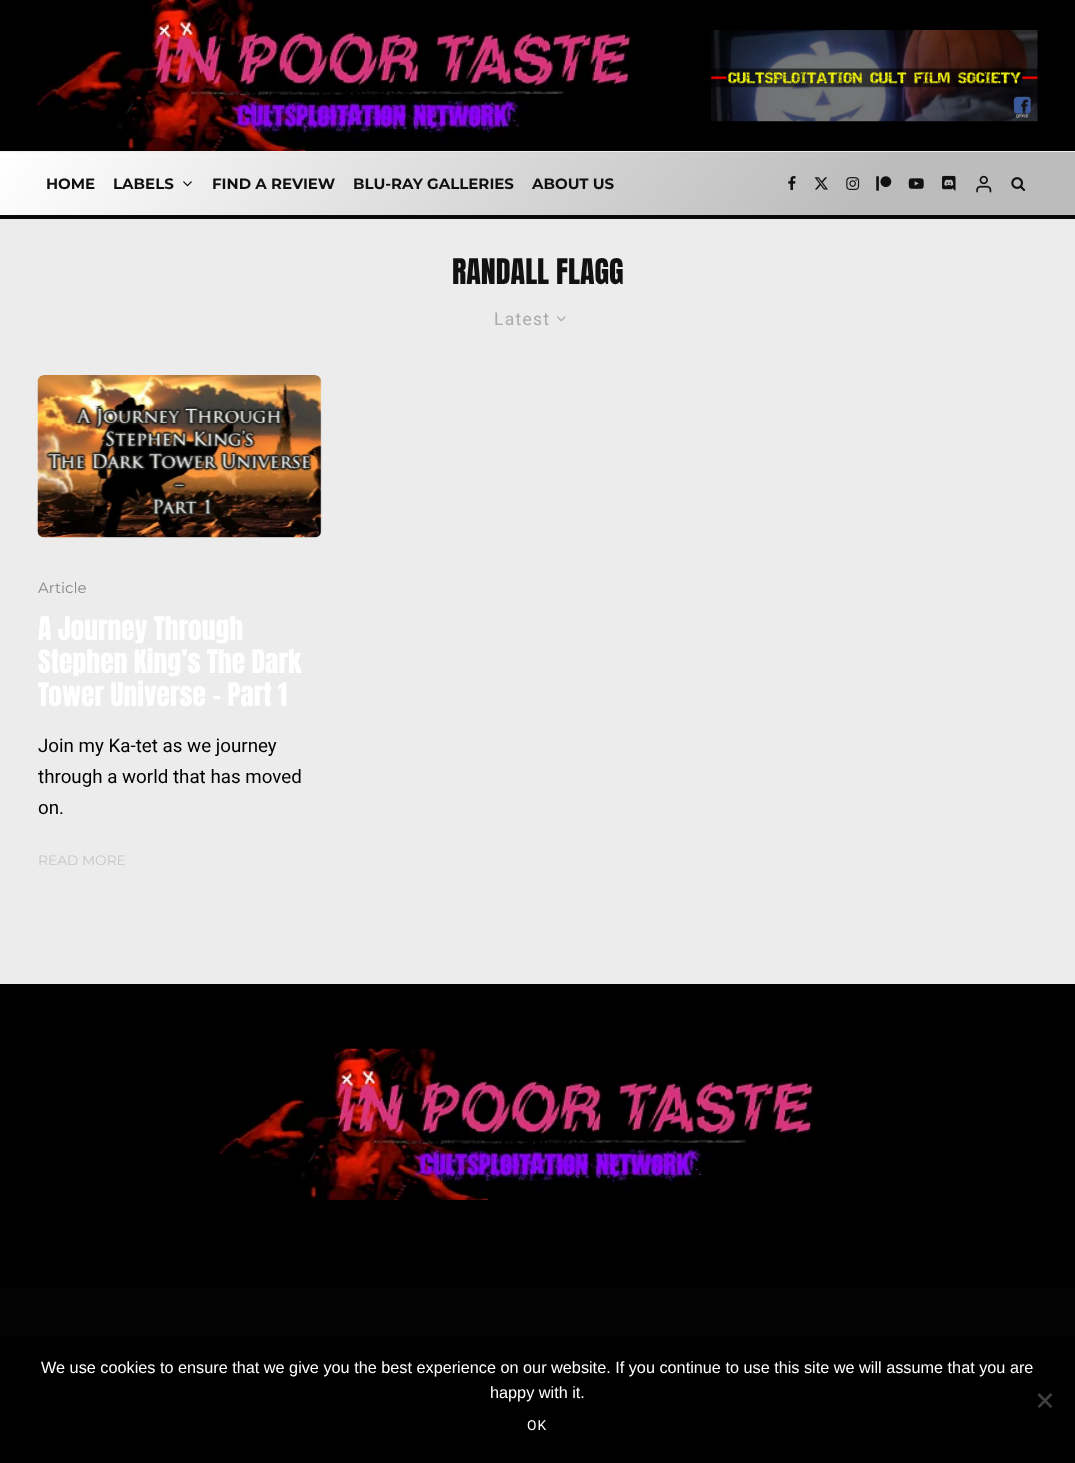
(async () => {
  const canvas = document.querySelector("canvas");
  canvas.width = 1075;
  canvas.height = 1463;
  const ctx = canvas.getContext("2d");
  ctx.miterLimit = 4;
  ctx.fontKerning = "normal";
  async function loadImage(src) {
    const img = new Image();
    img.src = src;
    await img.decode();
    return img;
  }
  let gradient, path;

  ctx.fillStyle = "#030303";
  ctx.fillRect(0, 0, 1075, 1463);
  ctx.fillStyle = "#000000";
  ctx.fillRect(0, 0, 1075, 151);
  ctx.drawImage(await loadImage("img/1.png"), 37, 0, 601, 151);
  ctx.drawImage(await loadImage("img/2.png"), 711, 30, 327, 92);
  gradient = ctx.createLinearGradient(207, -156, 868, 399);
  gradient.addColorStop(0, "#ffffff");
  gradient.addColorStop(0.8, "#bcbcbc");
  ctx.fillStyle = gradient;
  ctx.fillRect(0, 152, 1075, 1);
  gradient = ctx.createLinearGradient(207, -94, 868, 461);
  gradient.addColorStop(0, "#ffffff");
  gradient.addColorStop(0.8, "#bcbcbc");
  ctx.fillStyle = gradient;
  ctx.fillRect(0, 153, 1075, 62);
  ctx.fillStyle = "#eeeeee";
  ctx.fillRect(0, 151, 1075, 1);
  ctx.fillStyle = "#0a0a0a";
  ctx.fillRect(0, 215, 1075, 4);
  ctx.drawImage(await loadImage("img/3.png"), 183, 181, 9, 6);
  ctx.drawImage(await loadImage("img/4.png"), 788, 176, 8, 14);
  ctx.drawImage(await loadImage("img/5.png"), 814, 177, 14, 13);
  ctx.drawImage(await loadImage("img/6.png"), 846, 177, 14, 13);
  ctx.drawImage(await loadImage("img/7.png"), 876, 176, 16, 15);
  ctx.drawImage(await loadImage("img/8.png"), 908, 178, 16, 11);
  ctx.drawImage(await loadImage("img/9.png"), 942, 175, 14, 16);
  ctx.drawImage(await loadImage("img/10.png"), 976, 175, 16, 18);
  ctx.drawImage(await loadImage("img/11.png"), 1011, 177, 15, 14);
  ctx.fillStyle = "#ececec";
  ctx.fillRect(0, 219, 1075, 765);
  ctx.drawImage(await loadImage("img/12.png"), 557, 316, 9, 6);
  ctx.fillStyle = "#dbdbdb";
  ctx.beginPath();
  ctx.roundRect(38, 375, 283, 163, 6);
  ctx.fill();
  ctx.drawImage(await loadImage("img/13.png"), 37, 375, 285, 163);
  ctx.fillStyle = "#000000";
  ctx.fillRect(0, 984, 1075, 304);
  ctx.drawImage(await loadImage("img/14.png"), 220, 1048, 600, 152);
  ctx.fillRect(0, 1336, 1075, 127);
  ctx.fillStyle = "#404040";
  path = new Path2D("M1050.5 1393L1052.5 1395L1039.5 1408L1037.5 1406.5Z");
  ctx.fill(path);
  path = new Path2D("M1037.5 1395L1039.5 1393L1052.5 1406.5L1050.5 1408Z");
  ctx.fill(path);
  ctx.font = "bold 15px Montserrat";
  ctx.fillStyle = "#111111";
  for (const [text, x, y] of [
    ["HOME", 46, 189],
    ["LABELS", 113, 189],
    ["FIND A REVIEW", 212, 189],
    ["BLU-RAY GALLERIES", 353, 189],
    ["ABOUT US", 532, 189],
  ]) {
    ctx.fillText(text, x, y);
  }
  ctx.font = "30px Anton";
  ctx.fillText("RANDALL FLAGG", 452, 284);
  ctx.letterSpacing = "1.25px";
  ctx.font = "17.5px Roboto";
  ctx.fillStyle = "#aaaaaa";
  ctx.fillText("Latest", 494, 325);
  ctx.letterSpacing = "0px";
  ctx.font = "15px Montserrat";
  ctx.fillStyle = "#888888";
  ctx.fillText("Article", 38, 593);
  ctx.font = "27.5px Anton";
  ctx.fillStyle = "#ffffff";
  for (const [text, x, y] of [
    ["A Journey Through", 38, 640],
    ["Stephen King’s The Dark", 38, 673],
    ["Tower Universe – Part 1", 38, 706],
  ]) {
    ctx.fillText(text, x, y);
  }
  ctx.font = "18.75px Roboto";
  ctx.fillStyle = "#000000";
  for (const [text, x, y] of [
    ["Join my Ka-tet as we journey", 38, 752],
    ["through a world that has moved", 38, 783],
    ["on.", 38, 814],
  ]) {
    ctx.fillText(text, x, y);
  }
  ctx.font = "13.75px Montserrat";
  ctx.fillStyle = "#c6c6c6";
  ctx.fillText("READ MORE", 38, 865);
  ctx.font = "16.25px Liberation Sans";
  ctx.fillStyle = "#ffffff";
  ctx.fillText("We use cookies to ensure that we give you the best experience on our website. If you continue to use this site we will assume that you are", 41, 1373);
  ctx.fillText("happy with it.", 490, 1398);
  ctx.letterSpacing = "1px";
  ctx.font = "13.75px Roboto";
  ctx.fillText("OK", 527, 1430);
})();
